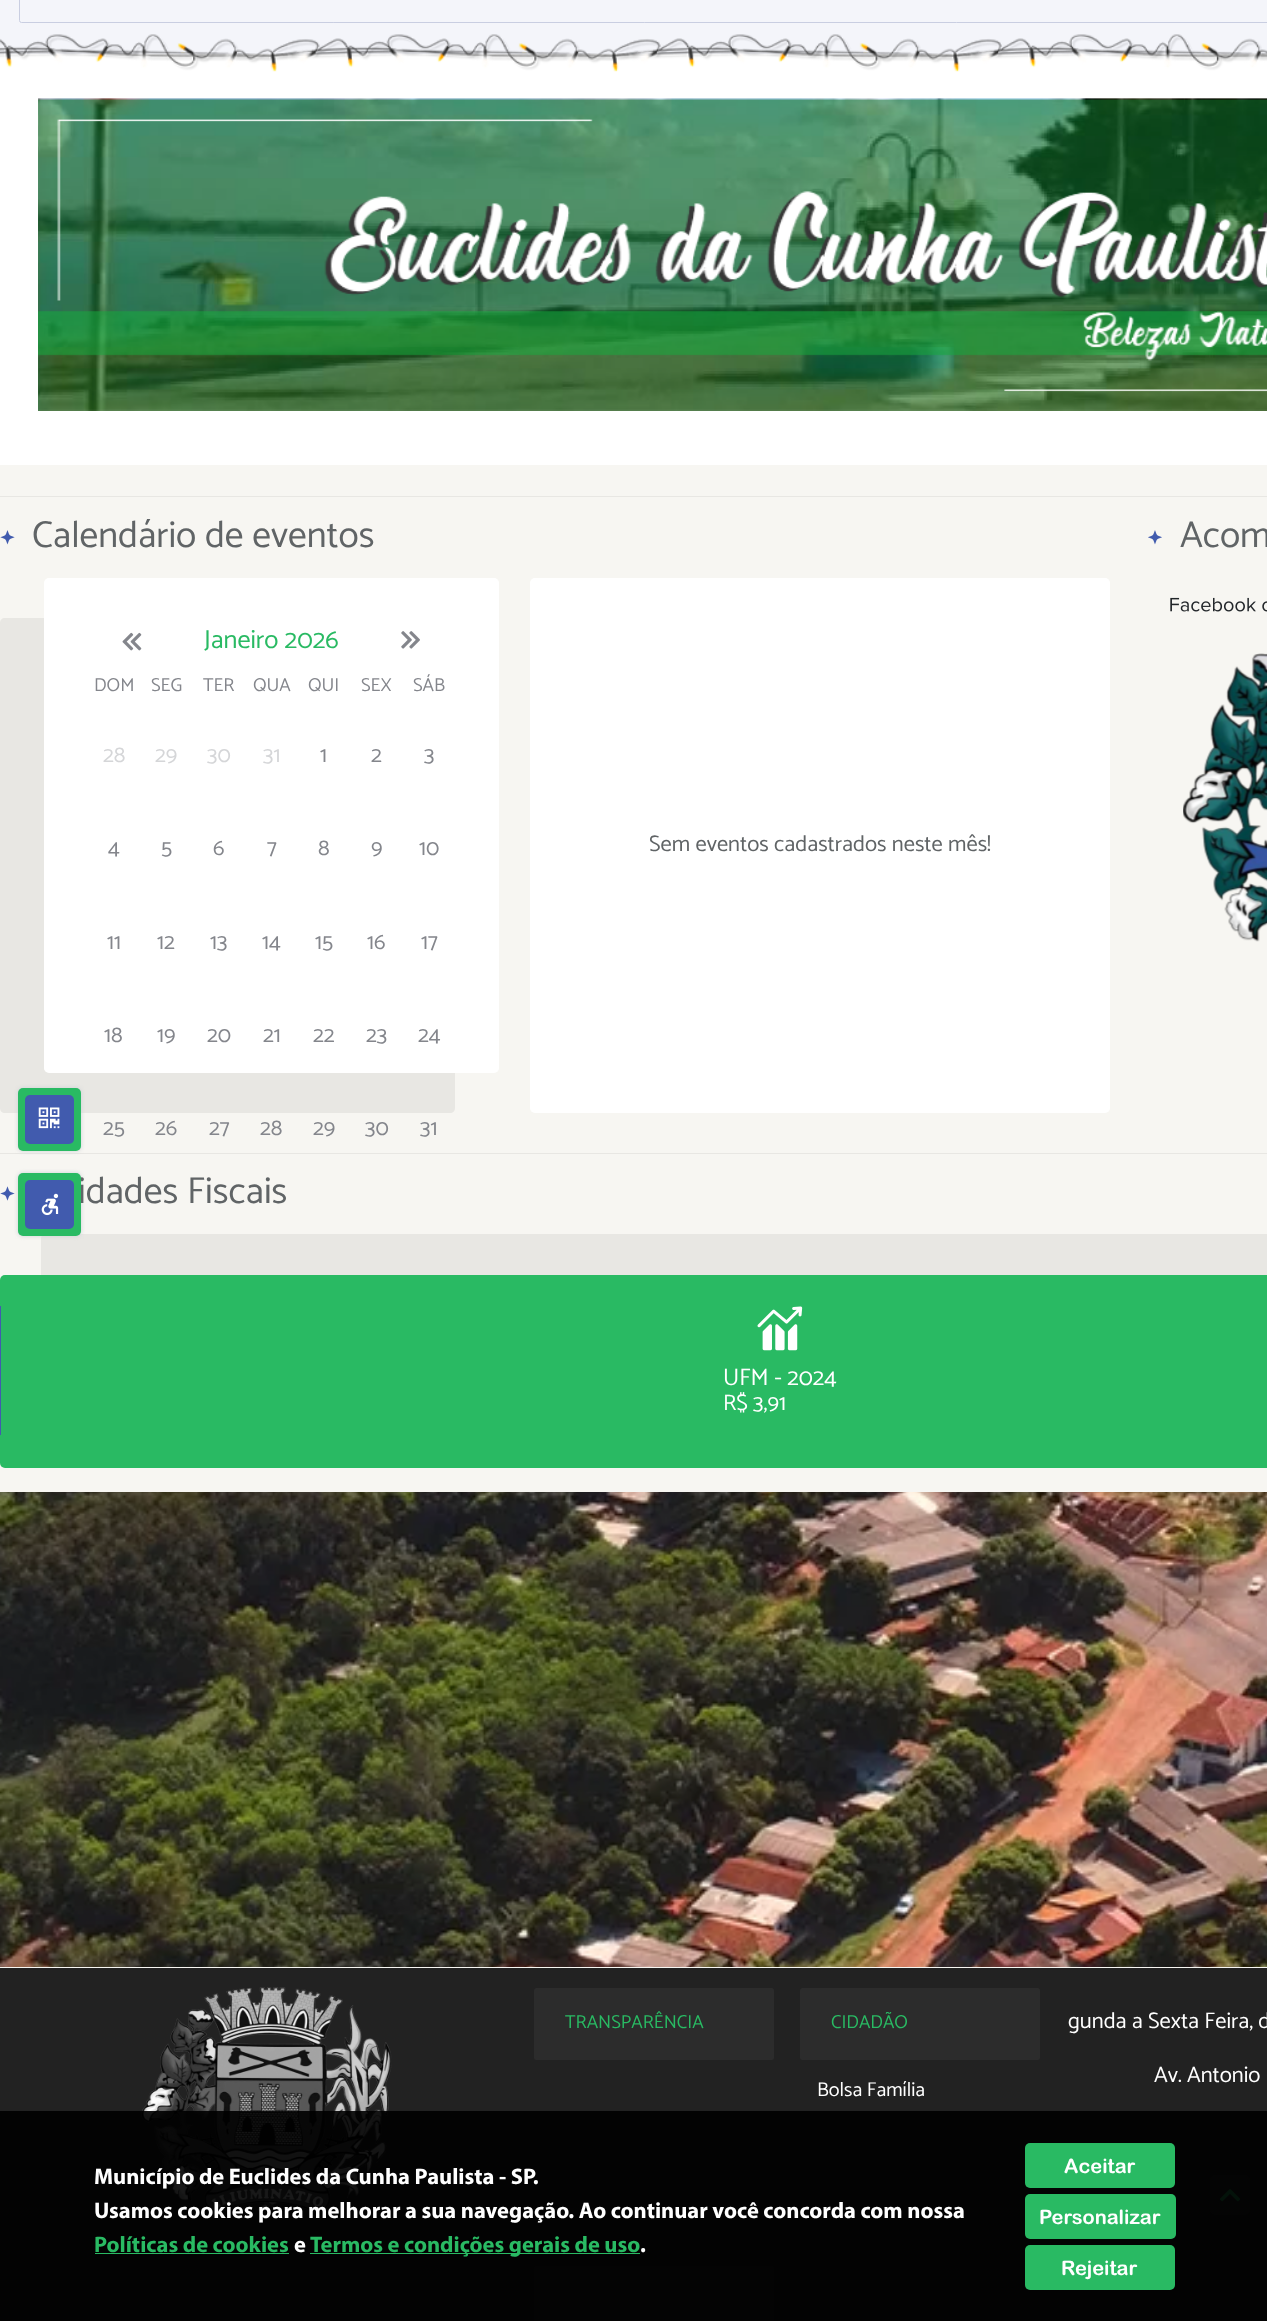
(async () => {
  const canvas = document.querySelector("canvas");
  canvas.width = 1267;
  canvas.height = 2321;
  const ctx = canvas.getContext("2d");
  ctx.miterLimit = 4;
  ctx.fontKerning = "normal";
  async function loadImage(src) {
    const img = new Image();
    img.src = src;
    await img.decode();
    return img;
  }
  let path;

  ctx.fillStyle = "#f7f6f2";
  ctx.fillRect(0, 0, 1267, 2321);
  ctx.fillStyle = "#f4f5fa";
  ctx.fillRect(0, 0, 1267, 54);
  ctx.beginPath();
  ctx.roundRect(19.5, -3.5, 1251, 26, 2);
  ctx.strokeStyle = "#c9cee1";
  ctx.stroke();
  ctx.fillStyle = "#ffffff";
  ctx.fillRect(0, 54, 1267, 411);
  ctx.drawImage(await loadImage("img/1.png"), 0, 34, 1267, 38);
  ctx.drawImage(await loadImage("img/2.png"), 38, 98, 1229, 313);
  ctx.fillStyle = "#e8e7e3";
  ctx.fillRect(0, 496, 1267, 1);
  ctx.drawImage(await loadImage("img/3.png"), 0, 530, 15, 15);
  path = new Path2D("M5 618C2 618 0 620 0 623V1108C0 1111 2 1113 5 1113H450C453 1113 455 1111 455 1108V1072H49C46 1072 44 1070 44 1068V618Z");
  ctx.fill(path);
  ctx.fillStyle = "#ffffff";
  ctx.beginPath();
  ctx.roundRect(44, 578, 455, 495, 5);
  ctx.fill();
  ctx.drawImage(await loadImage("img/4.png"), 122, 632, 20, 19);
  ctx.drawImage(await loadImage("img/5.png"), 401, 631, 19, 18);
  ctx.beginPath();
  ctx.roundRect(530, 578, 580, 535, 5);
  ctx.fill();
  ctx.drawImage(await loadImage("img/6.png"), 1148, 530, 14, 15);
  ctx.drawImage(await loadImage("img/7.png"), 1170, 597, 97, 15);
  ctx.drawImage(await loadImage("img/8.png"), 1183, 653, 84, 289);
  ctx.fillStyle = "#e8e7e3";
  ctx.fillRect(0, 1153, 1267, 1);
  ctx.drawImage(await loadImage("img/9.png"), 0, 1186, 15, 15);
  path = new Path2D("M46 1234C43 1234 41 1236 41 1239V1275H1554C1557 1275 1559 1277 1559 1280V1426H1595C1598 1426 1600 1424 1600 1421V1239C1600 1236 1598 1234 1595 1234Z");
  ctx.fill(path);
  ctx.fillStyle = "#29ba63";
  ctx.beginPath();
  ctx.roundRect(0, 1275, 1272, 193, 5);
  ctx.fill();
  ctx.fillStyle = "#415bae";
  ctx.fillRect(0, 1306, 1, 129);
  ctx.drawImage(await loadImage("img/10.png"), 757, 1306, 46, 45);
  ctx.drawImage(await loadImage("img/11.png"), 0, 1492, 1267, 475);
  ctx.fillStyle = "#222222";
  ctx.fillRect(0, 1968, 1267, 353);
  ctx.drawImage(await loadImage("img/12.png"), 141, 1987, 251, 225);
  ctx.fillStyle = "#2c2c2c";
  ctx.beginPath();
  ctx.roundRect(534, 1988, 240, 72, 2.5);
  ctx.fill();
  ctx.beginPath();
  ctx.roundRect(800, 1988, 240, 72, 2.5);
  ctx.fill();
  ctx.beginPath();
  ctx.roundRect(534, 2266, 240, 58, 2.5);
  ctx.fill();
  ctx.beginPath();
  ctx.roundRect(1210, 2175, 40, 40, 5);
  ctx.fill();
  ctx.drawImage(await loadImage("img/13.png"), 1220, 2189, 20, 13);
  for (const [x, y, w, h, color] of [
    [0, 2111, 1267, 210, "rgba(0, 0, 0, 0.9)"],
    [95, 2253, 194, 1, "#29ba63"],
    [310, 2253, 330, 1, "#29ba63"],
  ]) {
    ctx.fillStyle = color;
    ctx.fillRect(x, y, w, h);
  }
  ctx.beginPath();
  ctx.roundRect(1025, 2143, 150, 45, 5);
  ctx.fill();
  ctx.beginPath();
  ctx.roundRect(1025, 2194, 151, 45, 5);
  ctx.fill();
  ctx.beginPath();
  ctx.roundRect(1025, 2245, 150, 45, 5);
  ctx.fill();
  ctx.fillStyle = "#cbd0d6";
  ctx.filter = "blur(2px)";
  ctx.beginPath();
  ctx.roundRect(18, 1088, 63, 63, 5);
  ctx.fill();
  ctx.filter = "none";
  ctx.fillStyle = "#29ba63";
  ctx.beginPath();
  ctx.roundRect(18, 1088, 63, 63, 5);
  ctx.fill();
  ctx.fillStyle = "#415bae";
  ctx.beginPath();
  ctx.roundRect(25, 1095, 49, 49, 5);
  ctx.fill();
  ctx.drawImage(await loadImage("img/14.png"), 38, 1107, 22, 22);
  ctx.fillStyle = "#cbd0d6";
  ctx.filter = "blur(2px)";
  ctx.beginPath();
  ctx.roundRect(18, 1173, 63, 63, 5);
  ctx.fill();
  ctx.filter = "none";
  ctx.font = "37.5px Catamaran";
  ctx.fillStyle = "#606466";
  ctx.fillText("Calendário de eventos", 32, 547);
  ctx.font = "26.25px Catamaran";
  ctx.fillStyle = "#29ba63";
  ctx.fillText("Janeiro 2026", 204, 648);
  ctx.font = "18.75px Catamaran";
  ctx.fillStyle = "#84868c";
  for (const [text, x, y] of [
    ["DOM", 94, 691],
    ["SEG", 151, 691],
    ["TER", 203, 691],
    ["QUA", 253, 691],
    ["QUI", 308, 691],
    ["SEX", 361, 691],
    ["SÁB", 413, 691],
  ]) {
    ctx.fillText(text, x, y);
  }
  ctx.font = "22.5px Catamaran";
  ctx.fillStyle = "#d5d6d8";
  for (const [text, x, y] of [
    ["28", 103, 762],
    ["29", 155, 762],
    ["30", 207, 762],
    ["31", 263, 762],
  ]) {
    ctx.fillText(text, x, y);
  }
  ctx.fillStyle = "#84868c";
  for (const [text, x, y] of [
    ["1", 320, 762],
    ["2", 371, 762],
    ["3", 424, 762],
    ["4", 108, 855],
    ["5", 161, 855],
    ["6", 213, 855],
    ["7", 267, 855],
    ["8", 318, 855],
    ["9", 371, 855],
    ["10", 419, 855],
    ["11", 107, 949],
    ["12", 157, 949],
    ["13", 210, 949],
    ["14", 262, 949],
    ["15", 315, 949],
    ["16", 367, 949],
    ["17", 421, 949],
    ["18", 104, 1042],
    ["19", 157, 1042],
    ["20", 207, 1042],
    ["21", 263, 1042],
    ["22", 313, 1042],
    ["23", 366, 1042],
    ["24", 418, 1042],
    ["25", 103, 1135],
    ["26", 155, 1135],
    ["27", 209, 1135],
    ["28", 260, 1135],
    ["29", 313, 1135],
    ["30", 365, 1135],
    ["31", 420, 1135],
  ]) {
    ctx.fillText(text, x, y);
  }
  ctx.fillStyle = "#606466";
  ctx.fillText("Sem eventos cadastrados neste mês!", 649, 851);
  ctx.font = "37.5px Catamaran";
  ctx.fillText("Acom", 1180, 547);
  ctx.fillText("idades Fiscais", 78, 1203);
  ctx.font = "23.75px Catamaran";
  ctx.fillStyle = "#ffffff";
  ctx.fillText("UFM - 2024", 723, 1385);
  ctx.font = "22.5px Catamaran";
  ctx.fillText("R$ 3,91", 723, 1410);
  ctx.font = "18.75px Catamaran";
  ctx.fillStyle = "#29ba63";
  ctx.fillText("TRANSPARÊNCIA", 565, 2028);
  ctx.fillText("CIDADÃO", 831, 2028);
  ctx.font = "20px Catamaran";
  ctx.fillStyle = "#ffffff";
  ctx.fillText("Bolsa Família", 817, 2096);
  ctx.font = "22.5px Catamaran";
  ctx.fillText("gunda a Sexta Feira, d", 1068, 2028);
  ctx.fillText("Av. Antonio", 1154, 2082);
  ctx.font = "bold 22.5px Myriad";
  ctx.fillText("Município de Euclides da Cunha Paulista - SP.", 94, 2184);
  ctx.fillText("Usamos cookies para melhorar a sua navegação. Ao continuar você concorda com nossa", 94, 2218);
  ctx.fillStyle = "#29ba63";
  ctx.fillText("Políticas de cookies", 94, 2252);
  ctx.fillStyle = "#ffffff";
  ctx.fillText("e", 294, 2252);
  ctx.fillStyle = "#29ba63";
  ctx.fillText("Termos e condições gerais de uso", 310, 2252);
  ctx.fillStyle = "#ffffff";
  ctx.fillText(".", 640, 2252);
  ctx.font = "bold 20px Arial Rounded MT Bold";
  for (const [text, x, y] of [
    ["Aceitar", 1064, 2173],
    ["Personalizar", 1039, 2224],
    ["Rejeitar", 1061, 2275],
  ]) {
    ctx.fillText(text, x, y);
  }
  ctx.fillStyle = "#29ba63";
  ctx.beginPath();
  ctx.roundRect(18, 1173, 63, 63, 5);
  ctx.fill();
  ctx.fillStyle = "#415bae";
  ctx.beginPath();
  ctx.roundRect(25, 1180, 49, 49, 5);
  ctx.fill();
  ctx.drawImage(await loadImage("img/15.png"), 41, 1193, 18, 23);
})();
